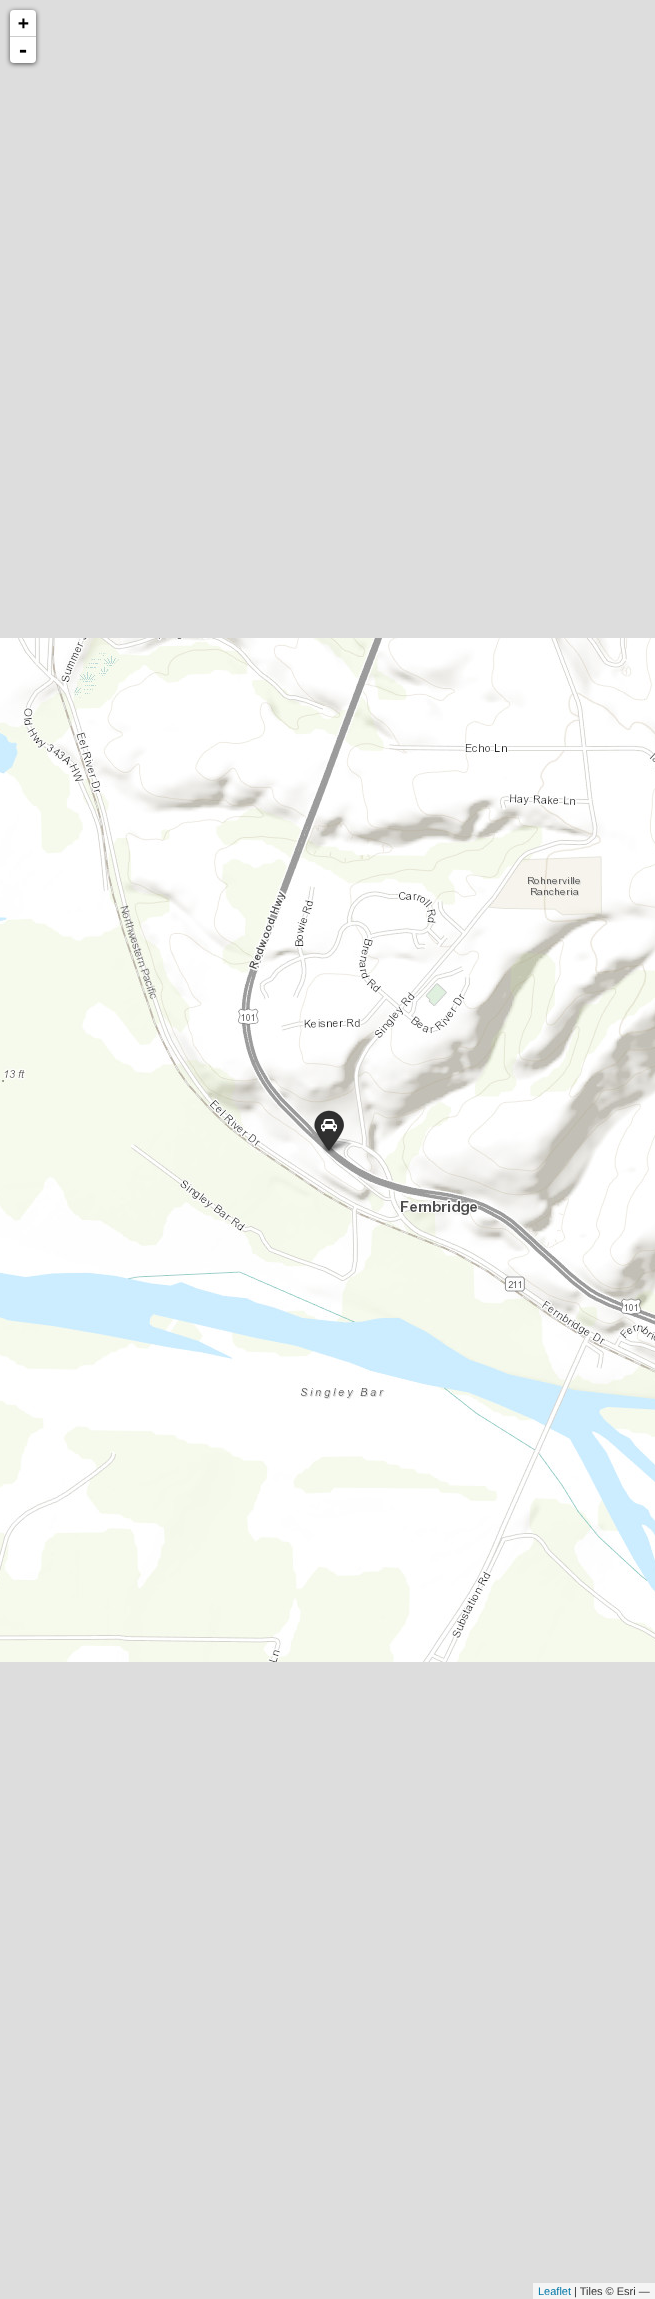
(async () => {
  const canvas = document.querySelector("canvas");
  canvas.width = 655;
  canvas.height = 2299;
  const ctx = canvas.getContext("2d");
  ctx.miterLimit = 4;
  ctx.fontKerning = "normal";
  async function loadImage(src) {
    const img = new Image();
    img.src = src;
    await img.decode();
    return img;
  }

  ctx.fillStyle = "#dddddd";
  ctx.fillRect(0, 0, 655, 2299);
  ctx.fillStyle = "rgba(0, 0, 0, 0.65)";
  ctx.filter = "blur(2.5px)";
  ctx.beginPath();
  ctx.roundRect(10, 11, 26, 53, 4);
  ctx.fill();
  ctx.filter = "none";
  ctx.fillStyle = "#ffffff";
  ctx.beginPath();
  ctx.roundRect(10, 10, 26, 27, [4, 4, 0, 0]);
  ctx.fill();
  ctx.fillStyle = "#cccccc";
  ctx.fillRect(10, 36, 26, 1);
  ctx.fillStyle = "#ffffff";
  ctx.beginPath();
  ctx.roundRect(10, 37, 26, 26, [0, 0, 4, 4]);
  ctx.fill();
  ctx.fillStyle = "#f5f5f5";
  ctx.fillRect(533, 2283, 122, 16);
  ctx.drawImage(await loadImage("img/1.png"), 0, 638, 107, 256);
  ctx.drawImage(await loadImage("img/2.png"), 107, 638, 256, 256);
  ctx.drawImage(await loadImage("img/3.png"), 363, 638, 256, 256);
  ctx.drawImage(await loadImage("img/4.png"), 619, 638, 36, 256);
  ctx.drawImage(await loadImage("img/5.png"), 0, 894, 107, 256);
  ctx.drawImage(await loadImage("img/6.png"), 107, 894, 256, 256);
  ctx.drawImage(await loadImage("img/7.png"), 363, 894, 256, 256);
  ctx.drawImage(await loadImage("img/8.png"), 619, 894, 36, 256);
  ctx.drawImage(await loadImage("img/9.png"), 0, 1150, 107, 256);
  ctx.drawImage(await loadImage("img/10.png"), 107, 1150, 256, 256);
  ctx.drawImage(await loadImage("img/11.png"), 363, 1150, 256, 256);
  ctx.drawImage(await loadImage("img/12.png"), 619, 1150, 36, 256);
  ctx.drawImage(await loadImage("img/13.png"), 0, 1406, 107, 256);
  ctx.drawImage(await loadImage("img/14.png"), 107, 1406, 256, 256);
  ctx.drawImage(await loadImage("img/15.png"), 363, 1406, 256, 256);
  ctx.drawImage(await loadImage("img/16.png"), 619, 1406, 36, 256);
  ctx.drawImage(await loadImage("img/19.png"), 321, 1139, 30, 15);
  ctx.drawImage(await loadImage("img/17.png"), 314, 1110, 30, 41);
  ctx.drawImage(await loadImage("img/18.png"), 321, 1119, 16, 13);
  ctx.font = "bold 18px DejaVu Sans Mono";
  ctx.fillStyle = "#000000";
  ctx.fillText("+", 18, 29);
  ctx.font = "bold 20px DejaVu Sans Mono";
  ctx.fillText("-", 17, 57);
  ctx.font = "11px Liberation Sans";
  ctx.fillStyle = "#0078a8";
  ctx.fillText("Leaflet", 538, 2295);
  ctx.fillStyle = "#333333";
  ctx.fillText("| Tiles © Esri —", 574, 2295);
})();
